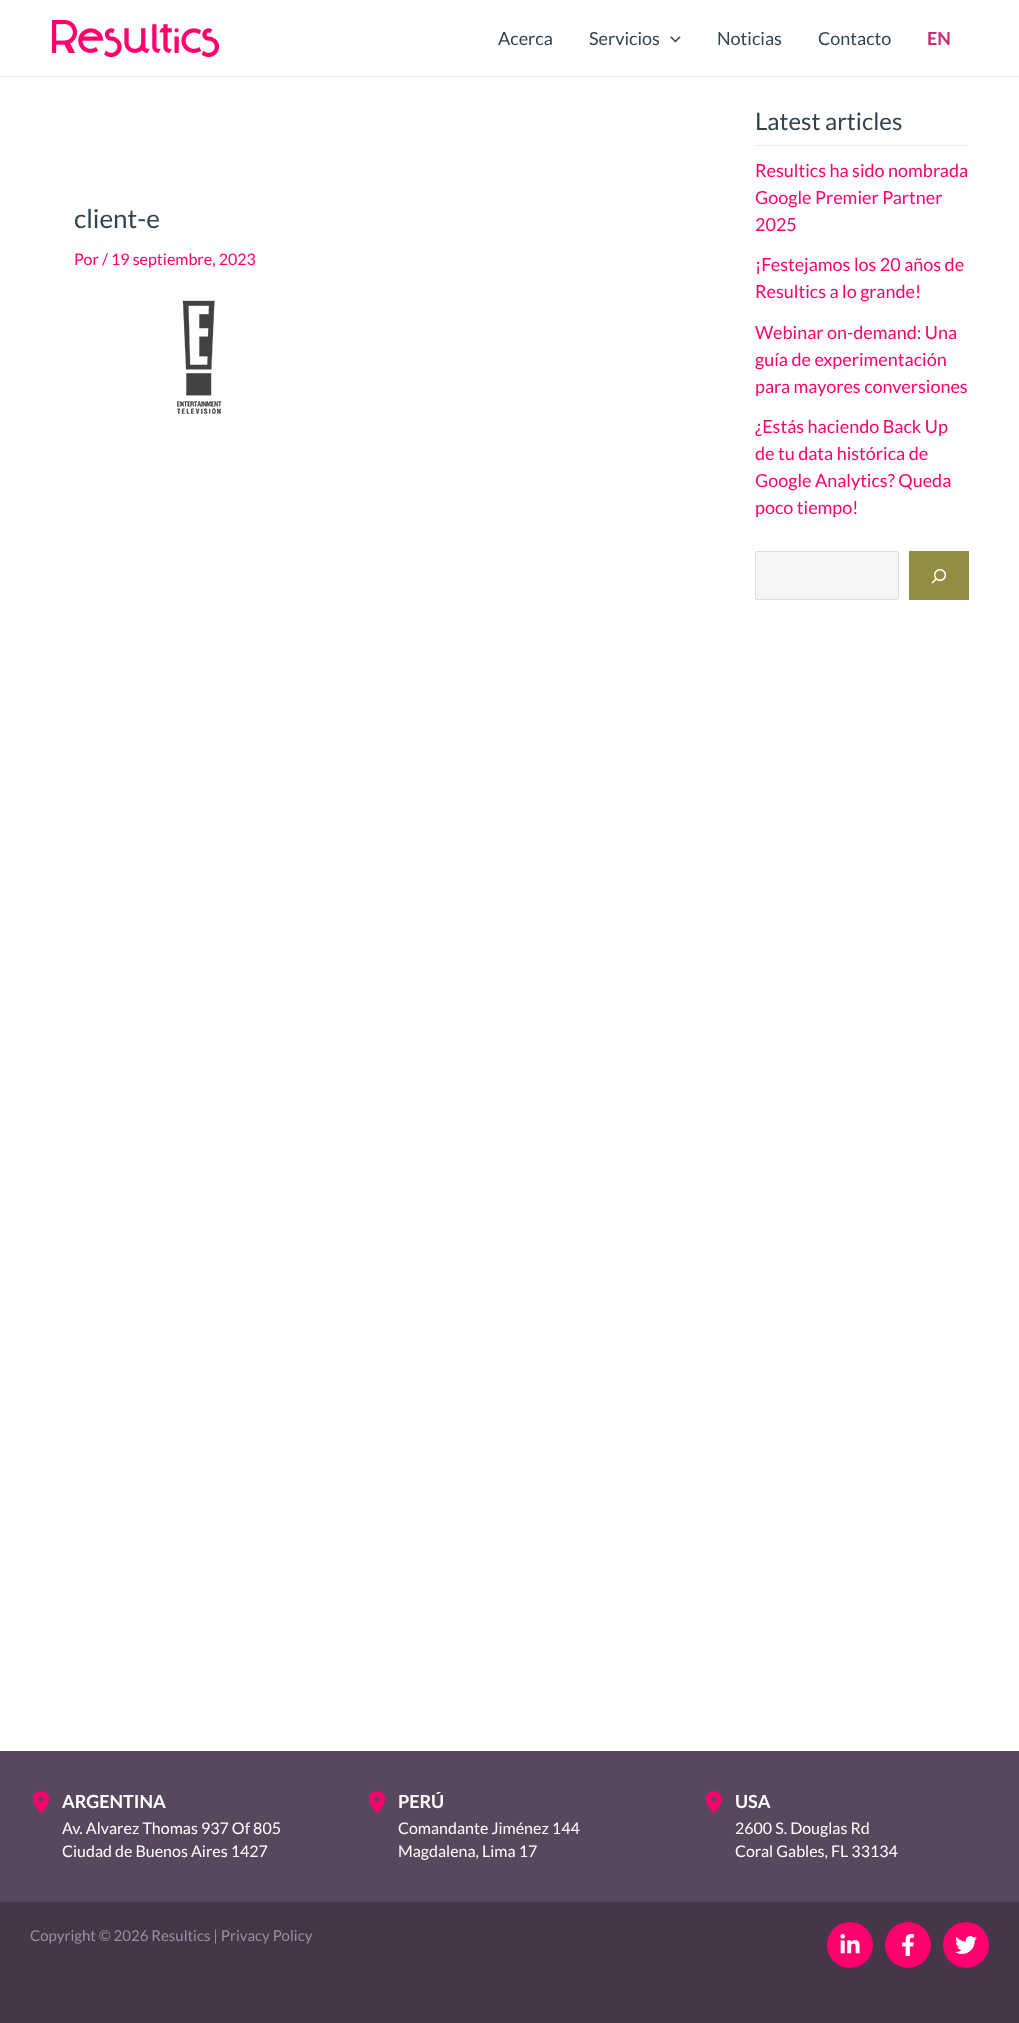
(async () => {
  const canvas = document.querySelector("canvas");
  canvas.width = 1019;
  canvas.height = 2023;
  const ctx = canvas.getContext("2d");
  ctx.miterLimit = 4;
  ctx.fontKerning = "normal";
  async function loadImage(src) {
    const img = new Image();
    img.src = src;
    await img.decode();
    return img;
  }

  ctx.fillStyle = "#ffffff";
  ctx.fillRect(0, 0, 1019, 2023);
  ctx.fillStyle = "#eeeeee";
  ctx.fillRect(0, 76, 1019, 1);
  ctx.drawImage(await loadImage("img/1.png"), 52, 20, 167, 37);
  ctx.drawImage(await loadImage("img/2.png"), 670, 36, 11, 7);
  ctx.drawImage(await loadImage("img/3.png"), 177, 300, 45, 114);
  ctx.fillRect(755, 145, 214, 1);
  ctx.fillStyle = "#f5f5f5";
  ctx.beginPath();
  ctx.roundRect(755.5, 551.5, 143, 48, 1.5);
  ctx.fill();
  ctx.strokeStyle = "#dddddd";
  ctx.stroke();
  ctx.fillStyle = "#918e41";
  ctx.fillRect(909, 551, 60, 49);
  ctx.drawImage(await loadImage("img/4.png"), 931, 569, 16, 15);
  ctx.fillStyle = "#58485d";
  ctx.fillRect(0, 1751, 1019, 151);
  ctx.drawImage(await loadImage("img/5.png"), 32, 1791, 18, 22);
  ctx.drawImage(await loadImage("img/5.png"), 368, 1791, 18, 22);
  ctx.drawImage(await loadImage("img/5.png"), 705, 1791, 18, 22);
  ctx.fillStyle = "#453649";
  ctx.fillRect(0, 1902, 1019, 121);
  ctx.fillStyle = "#ff006e";
  ctx.beginPath();
  ctx.arc(850, 1945, 23, 0, Math.PI * 2);
  ctx.fill();
  ctx.drawImage(await loadImage("img/6.png"), 840, 1934, 20, 20);
  ctx.beginPath();
  ctx.arc(908, 1945, 23, 0, Math.PI * 2);
  ctx.fill();
  ctx.drawImage(await loadImage("img/7.png"), 902, 1934, 12, 22);
  ctx.beginPath();
  ctx.arc(966, 1945, 23, 0, Math.PI * 2);
  ctx.fill();
  ctx.drawImage(await loadImage("img/8.png"), 955, 1936, 22, 18);
  ctx.font = "18px Lato";
  ctx.fillStyle = "#314350";
  for (const [text, x, y] of [
    ["Acerca", 498, 45],
    ["Servicios", 589, 45],
    ["Noticias", 717, 45],
    ["Contacto", 818, 45],
  ]) {
    ctx.fillText(text, x, y);
  }
  ctx.font = "bold 18px Lato";
  ctx.fillStyle = "#c82e73";
  ctx.fillText("EN", 927, 45);
  ctx.font = "26px Lato";
  ctx.fillStyle = "#314350";
  ctx.fillText("client-e", 74, 228);
  ctx.font = "16px Lato";
  ctx.fillStyle = "#ff006e";
  ctx.fillText("Por / 19 septiembre, 2023", 74, 265);
  ctx.font = "24px Lato";
  ctx.fillStyle = "#314350";
  ctx.fillText("Latest articles", 755, 130);
  ctx.font = "18px Lato";
  ctx.fillStyle = "#ff006e";
  for (const [text, x, y] of [
    ["Resultics ha sido nombrada", 755, 177],
    ["Google Premier Partner", 755, 204],
    ["2025", 755, 231],
    ["¡Festejamos los 20 años de", 755, 271],
    ["Resultics a lo grande!", 755, 298],
    ["Webinar on-demand: Una", 755, 339],
    ["guía de experimentación", 755, 366],
    ["para mayores conversiones", 755, 393],
    ["¿Estás haciendo Back Up", 755, 433],
    ["de tu data histórica de", 755, 460],
    ["Google Analytics? Queda", 755, 487],
    ["poco tiempo!", 755, 514],
  ]) {
    ctx.fillText(text, x, y);
  }
  ctx.font = "bold 18px Lato";
  ctx.fillStyle = "#ffffff";
  ctx.fillText("ARGENTINA", 62, 1808);
  ctx.font = "16px Lato";
  ctx.fillText("Av. Alvarez Thomas 937 Of 805", 62, 1834);
  ctx.fillText("Ciudad de Buenos Aires 1427", 62, 1857);
  ctx.font = "bold 18px Lato";
  ctx.fillText("PERÚ", 398, 1808);
  ctx.font = "16px Lato";
  ctx.fillText("Comandante Jiménez 144", 398, 1834);
  ctx.fillText("Magdalena, Lima 17", 398, 1857);
  ctx.font = "bold 18px Lato";
  ctx.fillText("USA", 735, 1808);
  ctx.font = "16px Lato";
  ctx.fillText("2600 S. Douglas Rd", 735, 1834);
  ctx.fillText("Coral Gables, FL 33134", 735, 1857);
  ctx.font = "15px Lato";
  ctx.fillStyle = "#9f8ca4";
  ctx.fillText("Copyright © 2026 Resultics | Privacy Policy", 30, 1941);
})();
